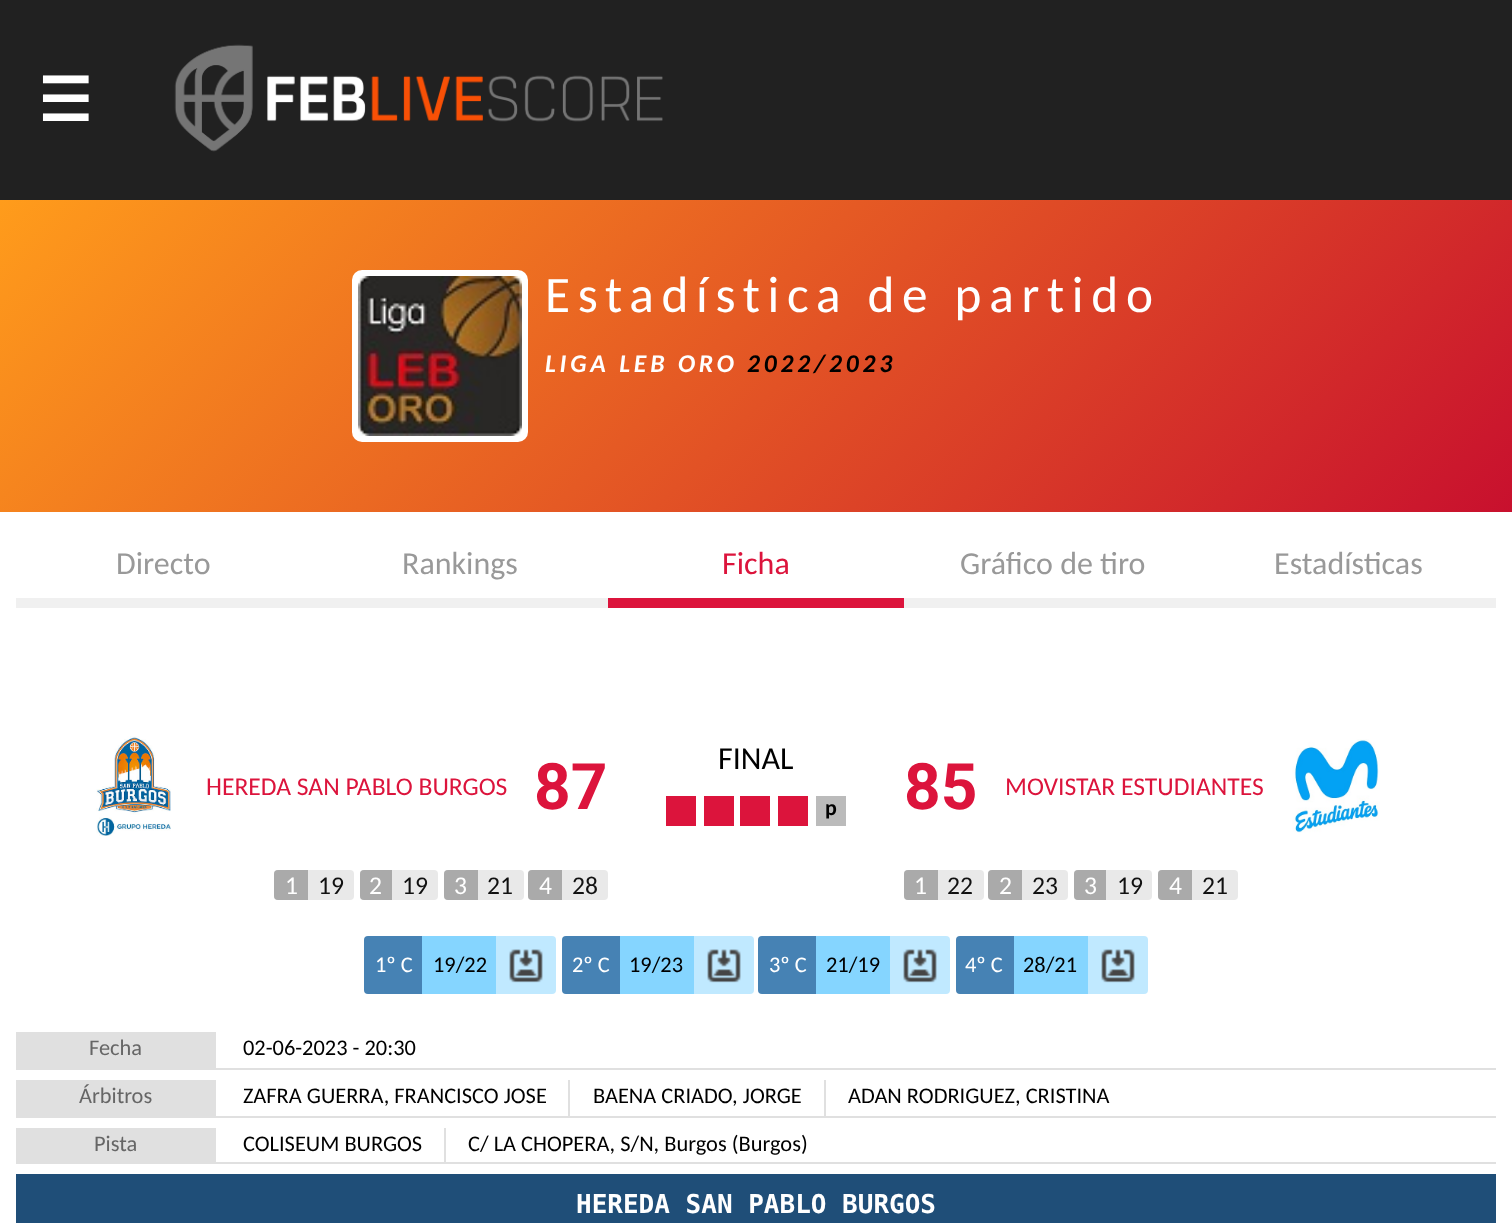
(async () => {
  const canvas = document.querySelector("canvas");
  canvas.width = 1512;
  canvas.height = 1223;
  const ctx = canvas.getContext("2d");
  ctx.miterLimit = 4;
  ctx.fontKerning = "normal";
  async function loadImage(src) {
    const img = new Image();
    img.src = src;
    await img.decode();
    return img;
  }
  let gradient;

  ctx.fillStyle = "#212121";
  ctx.fillRect(0, 0, 1512, 1223);
  ctx.drawImage(await loadImage("img/1.png"), 174, 44, 489, 108);
  ctx.fillStyle = "#ffffff";
  ctx.fillRect(0, 512, 1512, 711);
  gradient = ctx.createLinearGradient(300, -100, 1212, 812);
  gradient.addColorStop(0, "#ff9c1b");
  gradient.addColorStop(1, "#c8102e");
  ctx.fillStyle = gradient;
  ctx.fillRect(0, 200, 1512, 312);
  ctx.fillStyle = "#ffffff";
  ctx.beginPath();
  ctx.roundRect(352, 270, 176, 172, 10);
  ctx.fill();
  ctx.drawImage(await loadImage("img/2.png"), 358, 276, 164, 160);
  for (const [x, y, w, h, color] of [
    [16, 598, 592, 10, "#f0f0f0"],
    [608, 598, 296, 10, "#dc143c"],
    [904, 598, 592, 10, "#f0f0f0"],
  ]) {
    ctx.fillStyle = color;
    ctx.fillRect(x, y, w, h);
  }
  ctx.drawImage(await loadImage("img/3.png"), 96, 736, 75, 100);
  for (const [x, y, w, h, color] of [
    [666, 796, 30, 30, "#dc143c"],
    [704, 796, 30, 30, "#dc143c"],
    [740, 796, 30, 30, "#dc143c"],
    [778, 796, 30, 30, "#dc143c"],
    [816, 796, 30, 30, "#bbbbbb"],
  ]) {
    ctx.fillStyle = color;
    ctx.fillRect(x, y, w, h);
  }
  ctx.drawImage(await loadImage("img/4.png"), 1292, 739, 88, 94);
  ctx.fillStyle = "#e9e9e9";
  ctx.beginPath();
  ctx.roundRect(274, 870, 80, 30, 4);
  ctx.fill();
  ctx.fillStyle = "#aaaaaa";
  ctx.beginPath();
  ctx.roundRect(274, 870, 34, 30, [4, 0, 0, 4]);
  ctx.fill();
  ctx.fillStyle = "#e9e9e9";
  ctx.beginPath();
  ctx.roundRect(360, 870, 78, 30, 4);
  ctx.fill();
  ctx.fillStyle = "#aaaaaa";
  ctx.beginPath();
  ctx.roundRect(360, 870, 32, 30, [4, 0, 0, 4]);
  ctx.fill();
  ctx.fillStyle = "#e9e9e9";
  ctx.beginPath();
  ctx.roundRect(444, 870, 80, 30, 4);
  ctx.fill();
  ctx.fillStyle = "#aaaaaa";
  ctx.beginPath();
  ctx.roundRect(444, 870, 34, 30, [4, 0, 0, 4]);
  ctx.fill();
  ctx.fillStyle = "#e9e9e9";
  ctx.beginPath();
  ctx.roundRect(528, 870, 80, 30, 4);
  ctx.fill();
  ctx.fillStyle = "#aaaaaa";
  ctx.beginPath();
  ctx.roundRect(528, 870, 34, 30, [4, 0, 0, 4]);
  ctx.fill();
  ctx.fillStyle = "#e9e9e9";
  ctx.beginPath();
  ctx.roundRect(904, 870, 80, 30, 4);
  ctx.fill();
  ctx.fillStyle = "#aaaaaa";
  ctx.beginPath();
  ctx.roundRect(904, 870, 34, 30, [4, 0, 0, 4]);
  ctx.fill();
  ctx.fillStyle = "#e9e9e9";
  ctx.beginPath();
  ctx.roundRect(988, 870, 80, 30, 4);
  ctx.fill();
  ctx.fillStyle = "#aaaaaa";
  ctx.beginPath();
  ctx.roundRect(988, 870, 34, 30, [4, 0, 0, 4]);
  ctx.fill();
  ctx.fillStyle = "#e9e9e9";
  ctx.beginPath();
  ctx.roundRect(1074, 870, 78, 30, 4);
  ctx.fill();
  ctx.fillStyle = "#aaaaaa";
  ctx.beginPath();
  ctx.roundRect(1074, 870, 32, 30, [4, 0, 0, 4]);
  ctx.fill();
  ctx.fillStyle = "#e9e9e9";
  ctx.beginPath();
  ctx.roundRect(1158, 870, 80, 30, 4);
  ctx.fill();
  ctx.fillStyle = "#aaaaaa";
  ctx.beginPath();
  ctx.roundRect(1158, 870, 34, 30, [4, 0, 0, 4]);
  ctx.fill();
  ctx.fillStyle = "#4682b4";
  ctx.beginPath();
  ctx.roundRect(364, 936, 58, 58, [4, 0, 0, 4]);
  ctx.fill();
  ctx.fillStyle = "#85d5ff";
  ctx.fillRect(422, 936, 74, 58);
  ctx.fillStyle = "#c0e9ff";
  ctx.beginPath();
  ctx.roundRect(496, 936, 60, 58, [0, 4, 4, 0]);
  ctx.fill();
  ctx.drawImage(await loadImage("img/5.png"), 509, 949, 34, 34);
  ctx.fillStyle = "#4682b4";
  ctx.beginPath();
  ctx.roundRect(562, 936, 58, 58, [4, 0, 0, 4]);
  ctx.fill();
  ctx.fillStyle = "#85d5ff";
  ctx.fillRect(620, 936, 74, 58);
  ctx.fillStyle = "#c0e9ff";
  ctx.beginPath();
  ctx.roundRect(694, 936, 60, 58, [0, 4, 4, 0]);
  ctx.fill();
  ctx.drawImage(await loadImage("img/5.png"), 707, 949, 34, 34);
  ctx.fillStyle = "#4682b4";
  ctx.beginPath();
  ctx.roundRect(758, 936, 58, 58, [4, 0, 0, 4]);
  ctx.fill();
  ctx.fillStyle = "#85d5ff";
  ctx.fillRect(816, 936, 74, 58);
  ctx.fillStyle = "#c0e9ff";
  ctx.beginPath();
  ctx.roundRect(890, 936, 60, 58, [0, 4, 4, 0]);
  ctx.fill();
  ctx.drawImage(await loadImage("img/5.png"), 903, 949, 34, 34);
  ctx.fillStyle = "#4682b4";
  ctx.beginPath();
  ctx.roundRect(956, 936, 58, 58, [4, 0, 0, 4]);
  ctx.fill();
  ctx.fillStyle = "#85d5ff";
  ctx.fillRect(1014, 936, 74, 58);
  ctx.fillStyle = "#c0e9ff";
  ctx.beginPath();
  ctx.roundRect(1088, 936, 60, 58, [0, 4, 4, 0]);
  ctx.fill();
  ctx.drawImage(await loadImage("img/5.png"), 1101, 949, 34, 34);
  for (const [x, y, w, h, color] of [
    [16, 1068, 1480, 2, "#e0e0e0"],
    [16, 1032, 200, 36, "#e0e0e0"],
    [16, 1116, 1480, 2, "#e0e0e0"],
    [16, 1080, 200, 36, "#e0e0e0"],
    [568, 1080, 2, 36, "#e0e0e0"],
    [824, 1080, 2, 36, "#e0e0e0"],
    [16, 1162, 1480, 2, "#e0e0e0"],
    [16, 1128, 200, 34, "#e0e0e0"],
    [444, 1128, 2, 34, "#e0e0e0"],
    [16, 1174, 1480, 49, "#1f4e78"],
  ]) {
    ctx.fillStyle = color;
    ctx.fillRect(x, y, w, h);
  }
  ctx.font = "bold 60px DejaVu Sans";
  ctx.fillStyle = "#ffffff";
  ctx.fillText("☰", 38, 121);
  ctx.letterSpacing = "7.7px";
  ctx.font = "51.25px Carlito";
  ctx.fillText("Estadística de partido", 545, 312);
  ctx.letterSpacing = "3.8px";
  ctx.font = "italic bold 25.6px Carlito";
  ctx.fillText("LIGA LEB ORO", 545, 372);
  ctx.fillStyle = "#000000";
  ctx.fillText("2022/2023", 747, 372);
  ctx.letterSpacing = "0px";
  ctx.font = "32px Carlito";
  ctx.fillStyle = "#999999";
  ctx.fillText("Directo", 116, 574);
  ctx.fillText("Rankings", 402, 574);
  ctx.fillStyle = "#dc143c";
  ctx.fillText("Ficha", 722, 574);
  ctx.fillStyle = "#999999";
  ctx.fillText("Gráfico de tiro", 960, 574);
  ctx.fillText("Estadísticas", 1274, 574);
  ctx.font = "25.6px Carlito";
  ctx.fillStyle = "#dc143c";
  ctx.fillText("HEREDA SAN PABLO BURGOS", 206, 795);
  ctx.font = "bold 64px Roboto";
  ctx.fillText("87", 534, 809);
  ctx.font = "32px Carlito";
  ctx.fillStyle = "#000000";
  ctx.fillText("FINAL", 718, 769);
  ctx.font = "bold 22px Carlito";
  ctx.fillText("p", 825, 815);
  ctx.font = "bold 64px Roboto";
  ctx.fillStyle = "#dc143c";
  ctx.fillText("85", 904, 809);
  ctx.font = "25.6px Carlito";
  ctx.fillText("MOVISTAR ESTUDIANTES", 1005, 795);
  ctx.fillStyle = "#ffffff";
  ctx.fillText("1", 285, 894);
  ctx.fillStyle = "#111111";
  ctx.fillText("19", 318, 894);
  ctx.fillStyle = "#ffffff";
  ctx.fillText("2", 369, 894);
  ctx.fillStyle = "#111111";
  ctx.fillText("19", 402, 894);
  ctx.fillStyle = "#ffffff";
  ctx.fillText("3", 454, 894);
  ctx.fillStyle = "#111111";
  ctx.fillText("21", 487, 894);
  ctx.fillStyle = "#ffffff";
  ctx.fillText("4", 539, 894);
  ctx.fillStyle = "#111111";
  ctx.fillText("28", 572, 894);
  ctx.fillStyle = "#ffffff";
  ctx.fillText("1", 914, 894);
  ctx.fillStyle = "#111111";
  ctx.fillText("22", 947, 894);
  ctx.fillStyle = "#ffffff";
  ctx.fillText("2", 999, 894);
  ctx.fillStyle = "#111111";
  ctx.fillText("23", 1032, 894);
  ctx.fillStyle = "#ffffff";
  ctx.fillText("3", 1084, 894);
  ctx.fillStyle = "#111111";
  ctx.fillText("19", 1117, 894);
  ctx.fillStyle = "#ffffff";
  ctx.fillText("4", 1169, 894);
  ctx.fillStyle = "#111111";
  ctx.fillText("21", 1202, 894);
  ctx.font = "22.4px Carlito";
  ctx.fillStyle = "#ffffff";
  ctx.fillText("1º C", 375, 972);
  ctx.fillStyle = "#000000";
  ctx.fillText("19/22", 433, 972);
  ctx.fillStyle = "#ffffff";
  ctx.fillText("2º C", 572, 972);
  ctx.fillStyle = "#000000";
  ctx.fillText("19/23", 629, 972);
  ctx.fillStyle = "#ffffff";
  ctx.fillText("3º C", 769, 972);
  ctx.fillStyle = "#000000";
  ctx.fillText("21/19", 826, 972);
  ctx.fillStyle = "#ffffff";
  ctx.fillText("4º C", 965, 972);
  ctx.fillStyle = "#000000";
  ctx.fillText("28/21", 1023, 972);
  ctx.fillStyle = "#666666";
  ctx.fillText("Fecha", 89, 1055);
  ctx.fillStyle = "#000000";
  ctx.fillText("02-06-2023 - 20:30", 243, 1055);
  ctx.fillStyle = "#666666";
  ctx.fillText("Árbitros", 79, 1103);
  ctx.fillStyle = "#000000";
  for (const [text, x, y] of [
    ["ZAFRA GUERRA, FRANCISCO JOSE", 243, 1103],
    ["BAENA CRIADO, JORGE", 593, 1103],
    ["ADAN RODRIGUEZ, CRISTINA", 848, 1103],
  ]) {
    ctx.fillText(text, x, y);
  }
  ctx.fillStyle = "#666666";
  ctx.fillText("Pista", 94, 1151);
  ctx.fillStyle = "#000000";
  ctx.fillText("COLISEUM BURGOS", 243, 1151);
  ctx.fillText("C/ LA CHOPERA, S/N, Burgos (Burgos)", 468, 1151);
  ctx.font = "bold 26px DejaVu Sans Mono";
  ctx.fillStyle = "#ffffff";
  ctx.fillText("HEREDA SAN PABLO BURGOS", 576, 1213);
})();
